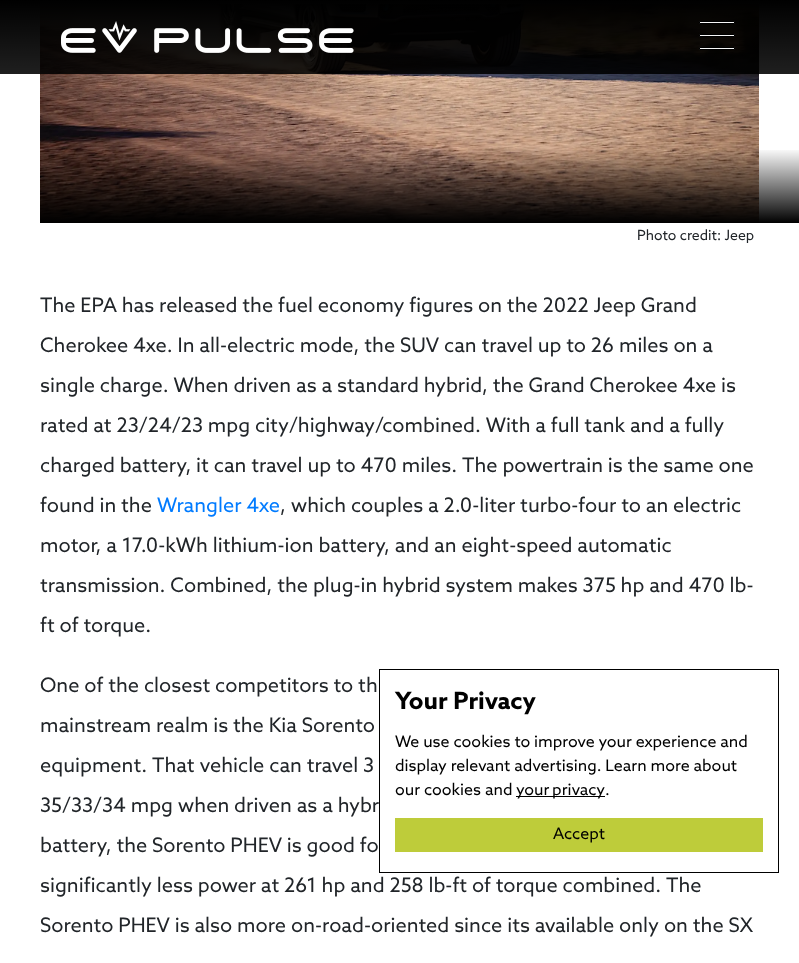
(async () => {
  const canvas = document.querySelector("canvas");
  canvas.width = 799;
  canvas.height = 963;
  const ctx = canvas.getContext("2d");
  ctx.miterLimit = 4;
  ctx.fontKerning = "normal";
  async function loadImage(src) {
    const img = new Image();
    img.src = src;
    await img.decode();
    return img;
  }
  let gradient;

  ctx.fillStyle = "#ffffff";
  ctx.fillRect(0, 0, 799, 963);
  ctx.drawImage(await loadImage("img/2.png"), 40, 4, 719, 219);
  gradient = ctx.createLinearGradient(400, 74, 400, 0);
  gradient.addColorStop(0, "rgba(0, 0, 0, 0.88)");
  gradient.addColorStop(1, "#000000");
  ctx.fillStyle = gradient;
  ctx.fillRect(0, 0, 799, 74);
  ctx.drawImage(await loadImage("img/1.png"), 61, 21, 293, 32);
  ctx.fillStyle = "#f6f6f6";
  ctx.beginPath();
  ctx.rect(699.5, 21.5, 35, 2);
  ctx.fill();
  ctx.strokeStyle = "#000000";
  ctx.stroke();
  ctx.beginPath();
  ctx.rect(699.5, 34.5, 35, 2);
  ctx.fill();
  ctx.stroke();
  ctx.beginPath();
  ctx.rect(699.5, 47.5, 35, 2);
  ctx.fill();
  ctx.stroke();
  gradient = ctx.createLinearGradient(440, 223, 440, 148);
  gradient.addColorStop(0, "#000000");
  gradient.addColorStop(1, "rgba(0, 0, 0, 0)");
  ctx.fillStyle = gradient;
  ctx.fillRect(40, 150, 759, 73);
  ctx.strokeRect(379.5, 669.5, 399, 203);
  ctx.fillStyle = "#000000";
  ctx.fillRect(516, 796, 89, 1);
  ctx.fillStyle = "#becc3a";
  ctx.fillRect(395, 818, 368, 34);
  ctx.font = "14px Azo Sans";
  ctx.fillStyle = "#212529";
  ctx.fillText("Photo credit: Jeep", 637, 240);
  ctx.font = "20px Azo Sans";
  for (const [text, x, y] of [
    ["The EPA has released the fuel economy figures on the 2022 Jeep Grand", 40, 312],
    ["Cherokee 4xe. In all-electric mode, the SUV can travel up to 26 miles on a", 40, 352],
    ["single charge. When driven as a standard hybrid, the Grand Cherokee 4xe is", 40, 392],
    ["rated at 23/24/23 mpg city/highway/combined. With a full tank and a fully", 40, 432],
    ["charged battery, it can travel up to 470 miles. The powertrain is the same one", 40, 472],
    ["found in the", 40, 512],
  ]) {
    ctx.fillText(text, x, y);
  }
  ctx.fillStyle = "#007bff";
  ctx.fillText("Wrangler 4xe", 157, 512);
  ctx.fillStyle = "#212529";
  for (const [text, x, y] of [
    [", which couples a 2.0-liter turbo-four to an electric", 280, 512],
    ["motor, a 17.0-kWh lithium-ion battery, and an eight-speed automatic", 40, 552],
    ["transmission. Combined, the plug-in hybrid system makes 375 hp and 470 lb-", 40, 592],
    ["ft of torque.", 40, 632],
    ["One of the closest competitors to th", 40, 692],
    ["mainstream realm is the Kia Sorento", 40, 732],
    ["equipment. That vehicle can travel 3", 40, 772],
    ["35/33/34 mpg when driven as a hybr", 40, 812],
    ["battery, the Sorento PHEV is good fo", 40, 852],
    ["significantly less power at 261 hp and 258 lb-ft of torque combined. The", 40, 892],
    ["Sorento PHEV is also more on-road-oriented since its available only on the SX", 40, 932],
  ]) {
    ctx.fillText(text, x, y);
  }
  ctx.font = "bold 24px Azo Sans";
  ctx.fillStyle = "#000000";
  ctx.fillText("Your Privacy", 395, 709);
  ctx.font = "16px Azo Sans";
  for (const [text, x, y] of [
    ["We use cookies to improve your experience and", 395, 747],
    ["display relevant advertising. Learn more about", 395, 771],
    ["our cookies and", 395, 795],
  ]) {
    ctx.fillText(text, x, y);
  }
  ctx.wordSpacing = "-1px";
  ctx.fillText("your privacy", 516, 795);
  ctx.wordSpacing = "0px";
  ctx.fillText(".", 605, 795);
  ctx.fillText("Accept", 553, 839);
})();
